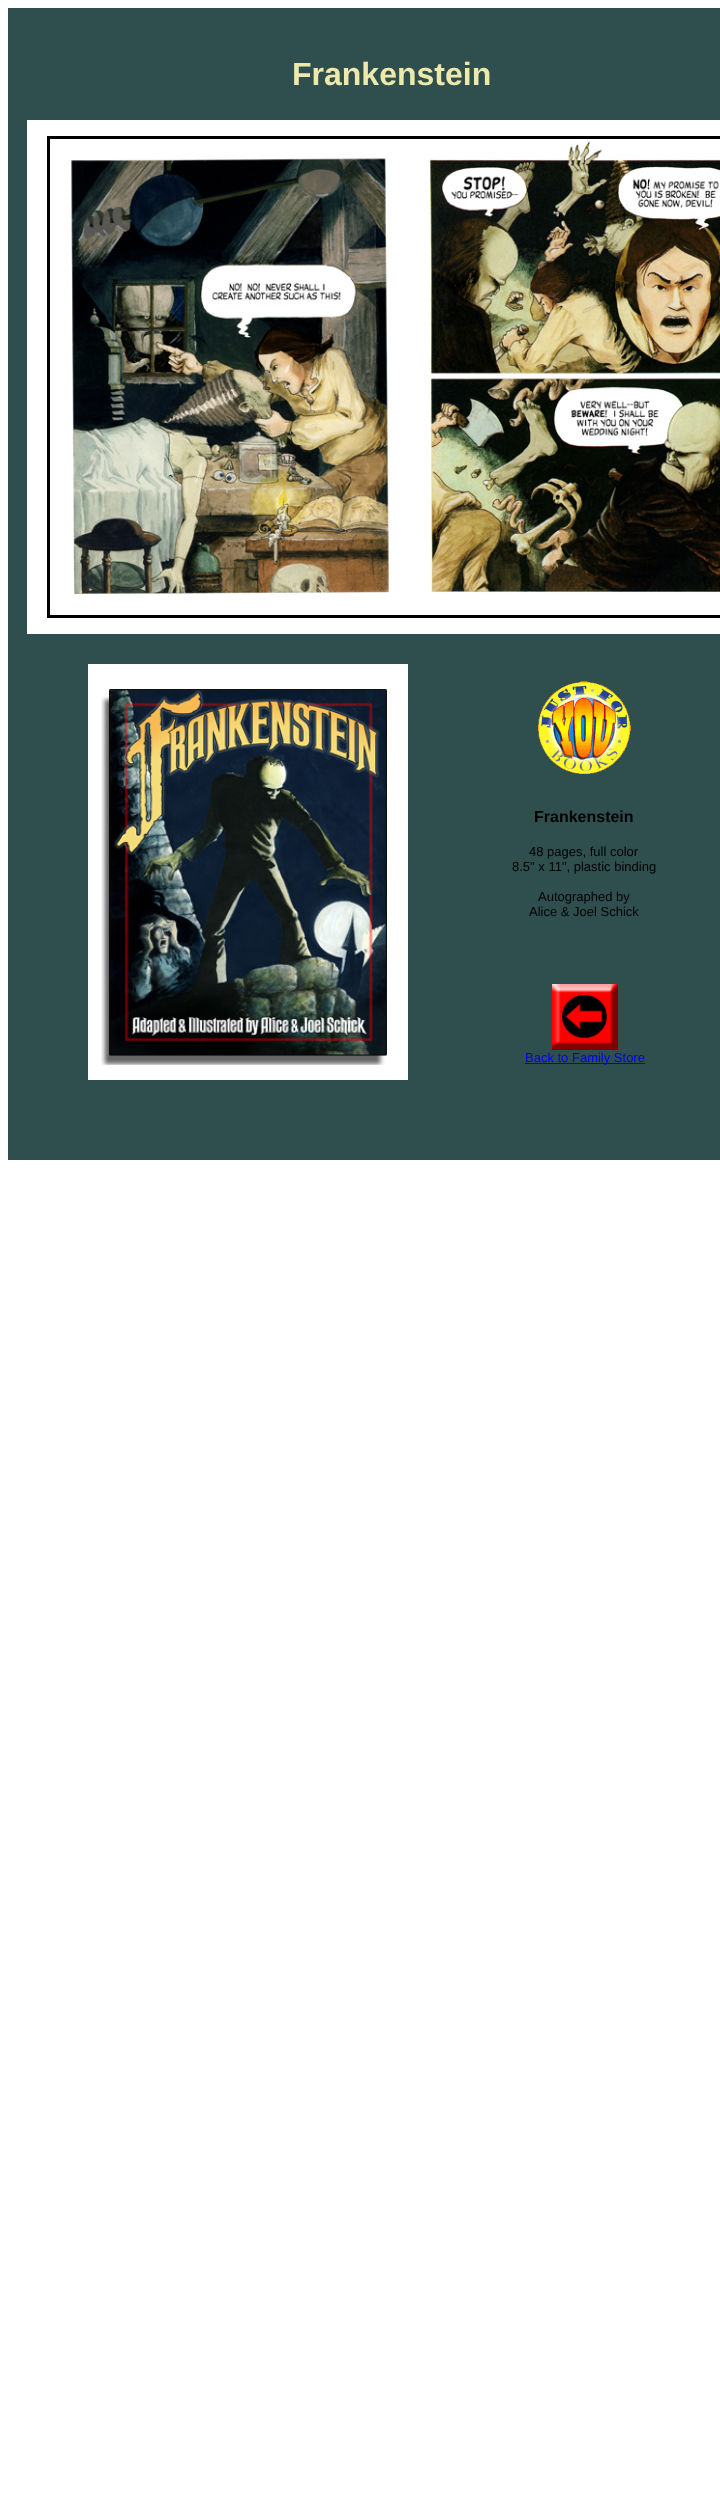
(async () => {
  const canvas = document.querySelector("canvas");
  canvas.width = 720;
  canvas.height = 2510;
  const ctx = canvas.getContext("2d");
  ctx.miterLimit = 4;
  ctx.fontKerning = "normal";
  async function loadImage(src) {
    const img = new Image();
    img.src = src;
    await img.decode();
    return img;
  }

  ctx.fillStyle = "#ffffff";
  ctx.fillRect(0, 0, 720, 2510);
  ctx.fillStyle = "#2f4f4f";
  ctx.fillRect(8, 8, 712, 1152);
  ctx.fillStyle = "#ffffff";
  ctx.fillRect(27, 120, 693, 514);
  ctx.strokeStyle = "#000000";
  ctx.lineWidth = 3;
  ctx.strokeRect(48.5, 137.5, 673, 479);
  ctx.drawImage(await loadImage("img/1.png"), 71, 141, 649, 454);
  ctx.fillRect(88, 664, 320, 416);
  ctx.drawImage(await loadImage("img/2.png"), 101, 689, 286, 376);
  ctx.drawImage(await loadImage("img/3.png"), 538, 681, 93, 93);
  ctx.drawImage(await loadImage("img/4.png"), 552, 984, 66, 66);
  ctx.fillStyle = "#0000ee";
  ctx.fillRect(525, 1063, 120, 1);
  ctx.font = "bold 32px Liberation Sans";
  ctx.fillStyle = "#eee8aa";
  ctx.fillText("Frankenstein", 292, 85);
  ctx.font = "bold 16px Liberation Sans";
  ctx.fillStyle = "#000000";
  ctx.fillText("Frankenstein", 534, 822);
  ctx.font = "13px Liberation Sans";
  for (const [text, x, y] of [
    ["48 pages, full color", 529, 856],
    ["8.5\" x 11\", plastic binding", 512, 871],
    ["Autographed by", 538, 901],
    ["Alice & Joel Schick", 529, 916],
  ]) {
    ctx.fillText(text, x, y);
  }
  ctx.fillStyle = "#0000ee";
  ctx.fillText("Back to Family Store", 525, 1062);
})();
